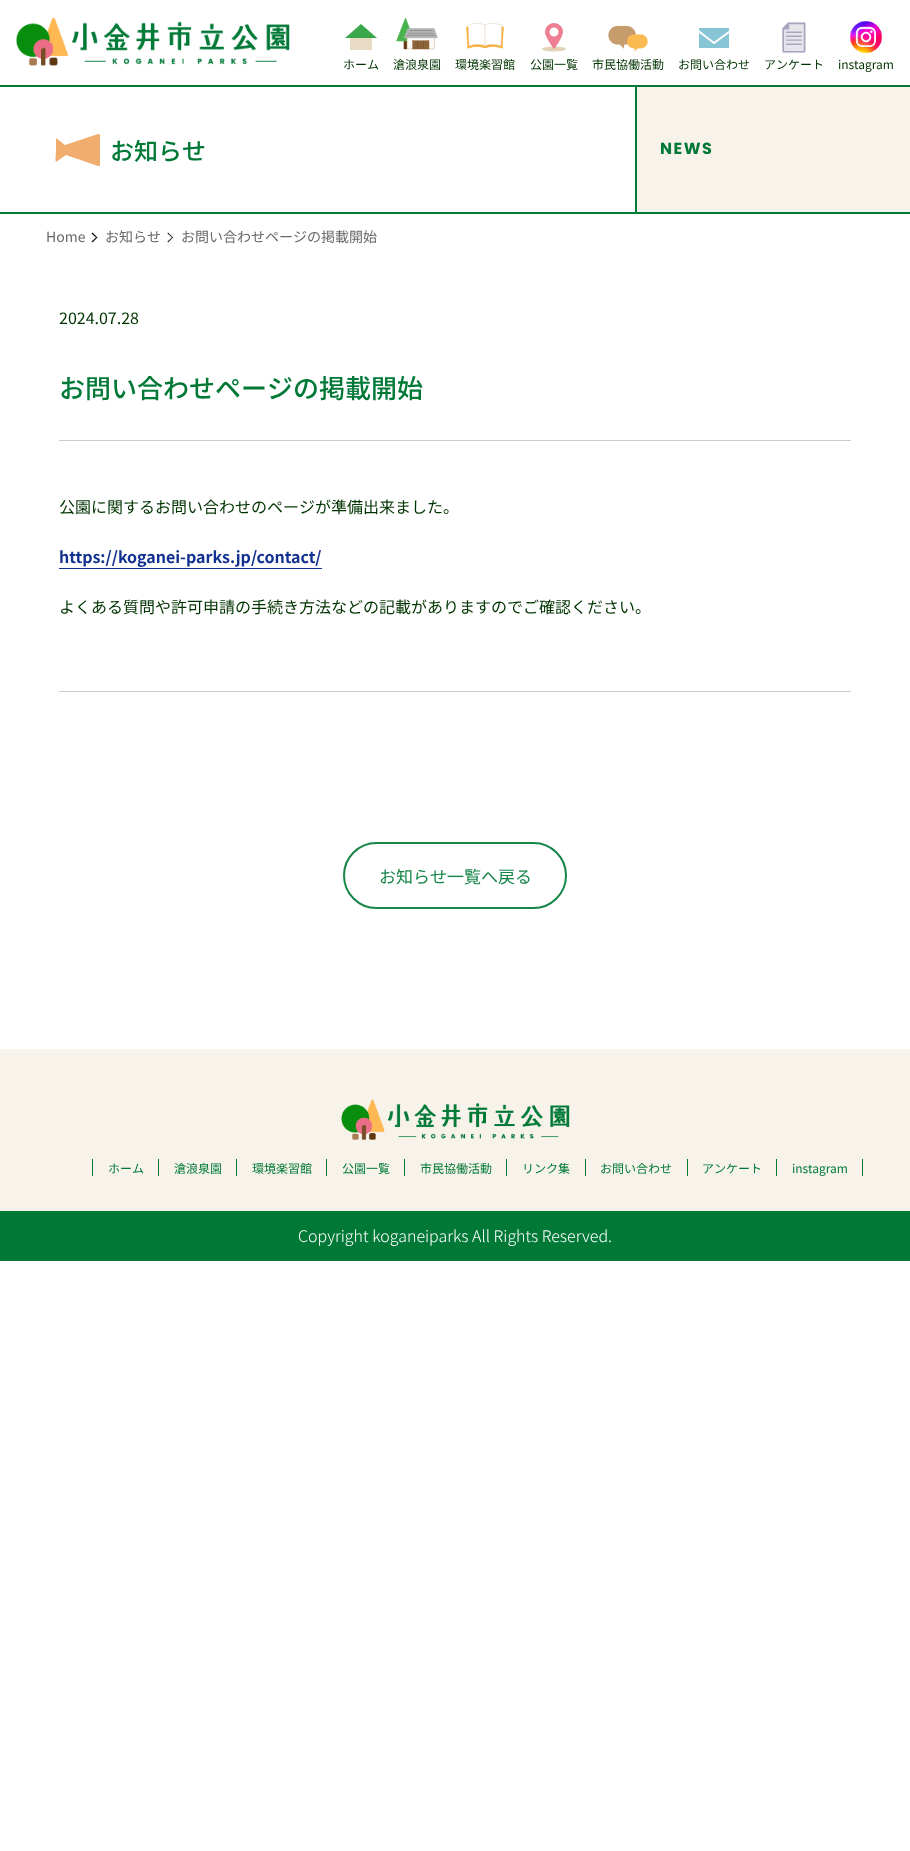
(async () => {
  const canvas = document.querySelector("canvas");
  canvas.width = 910;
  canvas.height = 1851;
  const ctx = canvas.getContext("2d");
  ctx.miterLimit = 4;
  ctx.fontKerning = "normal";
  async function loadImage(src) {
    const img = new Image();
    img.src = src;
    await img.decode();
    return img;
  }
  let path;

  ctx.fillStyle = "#ffffff";
  ctx.fillRect(0, 0, 910, 1851);
  ctx.drawImage(await loadImage("img/1.png"), 16, 17, 274, 49);
  ctx.fillStyle = "#e8dac3";
  ctx.fillRect(350, 38, 22, 12);
  ctx.fillStyle = "#39a74a";
  path = new Path2D("M361 24L345 38H377Z");
  ctx.fill(path);
  ctx.drawImage(await loadImage("img/2.png"), 396, 17, 42, 33);
  ctx.drawImage(await loadImage("img/3.png"), 466, 23, 38, 26);
  ctx.drawImage(await loadImage("img/4.png"), 542, 23, 24, 29);
  ctx.drawImage(await loadImage("img/5.png"), 608, 25, 40, 27);
  ctx.fillStyle = "#87c5d6";
  ctx.fillRect(699, 28, 30, 20);
  path = new Path2D("M699 31.5L714 43L729 32");
  ctx.strokeStyle = "#ffffff";
  ctx.lineWidth = 2.1;
  ctx.lineCap = "round";
  ctx.lineJoin = "round";
  ctx.stroke(path);
  ctx.drawImage(await loadImage("img/6.png"), 782, 22, 24, 31);
  ctx.drawImage(await loadImage("img/7.png"), 850, 21, 33, 33);
  for (const [x, y, w, h, color] of [
    [637, 87, 273, 125, "#f7f2ea"],
    [0, 85, 910, 2, "#007937"],
    [0, 212, 910, 2, "#007937"],
    [635, 87, 2, 125, "#007937"],
  ]) {
    ctx.fillStyle = color;
    ctx.fillRect(x, y, w, h);
  }
  ctx.fillStyle = "#f0ad6d";
  path = new Path2D("M98 134L65 145L56 138V150C56 152 55 161 56 162L66 155L98 166C99 166 100 166 100 165V135C100 134 99 134 98 134Z");
  ctx.fill(path);
  ctx.fillStyle = "#101010";
  path = new Path2D("M91.5 233.5L92.5 232.5L97.5 237.5L96.5 238Z");
  ctx.fill(path);
  path = new Path2D("M91.5 241.5L96.5 237L97.5 237.5L92.5 242.5Z");
  ctx.fill(path);
  path = new Path2D("M167.5 233.5L168 232.5L173 237.5L172.5 238Z");
  ctx.fill(path);
  path = new Path2D("M167.5 241.5L172.5 237L173 237.5L168 242.5Z");
  ctx.fill(path);
  for (const [x, y, w, h, color] of [
    [59, 440, 792, 1, "#cccccc"],
    [59, 691, 792, 1, "#cccccc"],
    [59, 568, 263, 1, "#113090"],
  ]) {
    ctx.fillStyle = color;
    ctx.fillRect(x, y, w, h);
  }
  ctx.beginPath();
  ctx.roundRect(344, 843, 222, 65, 32.5);
  ctx.strokeStyle = "#168648";
  ctx.lineWidth = 2;
  ctx.lineJoin = "miter";
  ctx.stroke();
  ctx.fillStyle = "#f7f2ea";
  ctx.fillRect(0, 1049, 910, 162);
  ctx.drawImage(await loadImage("img/8.png"), 341, 1099, 229, 41);
  for (const [x, y, w, h, color] of [
    [158, 1159, 1, 17, "#007937"],
    [92, 1159, 1, 17, "#007937"],
    [236, 1159, 1, 17, "#007937"],
    [326, 1159, 1, 17, "#007937"],
    [404, 1159, 1, 17, "#007937"],
    [506, 1159, 1, 17, "#007937"],
    [585, 1159, 1, 17, "#007937"],
    [687, 1159, 1, 17, "#007937"],
    [776, 1159, 1, 17, "#007937"],
    [862, 1159, 1, 17, "#007937"],
    [0, 1211, 910, 50, "#007937"],
  ]) {
    ctx.fillStyle = color;
    ctx.fillRect(x, y, w, h);
  }
  ctx.font = "12px Noto Sans JP";
  ctx.fillStyle = "#003300";
  for (const [text, x, y] of [
    ["ホーム", 343, 69],
    ["滄浪泉園", 393, 69],
    ["環境楽習館", 455, 69],
    ["公園一覧", 530, 69],
    ["市民協働活動", 592, 69],
    ["お問い合わせ", 678, 69],
    ["アンケート", 764, 69],
    ["instagram", 838, 69],
  ]) {
    ctx.fillText(text, x, y);
  }
  ctx.font = "500 24px Noto Sans JP";
  ctx.fillStyle = "#007937";
  ctx.fillText("お知らせ", 110, 160);
  ctx.letterSpacing = "1.5px";
  ctx.font = "bold 16px Poppins";
  ctx.fillText("NEWS", 660, 154);
  ctx.letterSpacing = "0px";
  ctx.font = "14px Noto Sans JP";
  ctx.fillStyle = "#686868";
  for (const [text, x, y] of [
    ["Home", 46, 242],
    ["お知らせ", 105, 242],
    ["お問い合わせページの掲載開始", 181, 242],
  ]) {
    ctx.fillText(text, x, y);
  }
  ctx.font = "16px Noto Sans JP";
  ctx.fillStyle = "#003300";
  ctx.fillText("2024.07.28", 59, 324);
  ctx.font = "500 26px Noto Sans JP";
  ctx.fillStyle = "#007937";
  ctx.fillText("お問い合わせページの掲載開始", 59, 398);
  ctx.font = "16px Noto Sans JP";
  ctx.fillStyle = "#003300";
  ctx.fillText("公園に関するお問い合わせのページが準備出来ました。", 59, 513);
  ctx.font = "bold 16px Noto Sans JP";
  ctx.fillStyle = "#113090";
  ctx.fillText("https://koganei-parks.jp/contact/", 59, 563);
  ctx.font = "16px Noto Sans JP";
  ctx.fillStyle = "#003300";
  ctx.fillText("よくある質問や許可申請の手続き方法などの記載がありますのでご確認ください。", 59, 613);
  ctx.font = "17px Noto Sans JP";
  ctx.fillStyle = "#168648";
  ctx.fillText("お知らせ一覧へ戻る", 379, 883);
  ctx.font = "12px Noto Sans JP";
  ctx.fillStyle = "#007937";
  for (const [text, x, y] of [
    ["ホーム", 108, 1173],
    ["滄浪泉園", 174, 1173],
    ["環境楽習館", 252, 1173],
    ["公園一覧", 342, 1173],
    ["市民協働活動", 420, 1173],
    ["リンク集", 522, 1173],
    ["お問い合わせ", 600, 1173],
    ["アンケート", 702, 1173],
    ["instagram", 792, 1173],
  ]) {
    ctx.fillText(text, x, y);
  }
  ctx.font = "300 16px Noto Sans JP";
  ctx.fillStyle = "#ffffff";
  ctx.fillText("Copyright koganeiparks All Rights Reserved.", 298, 1242);
})();
